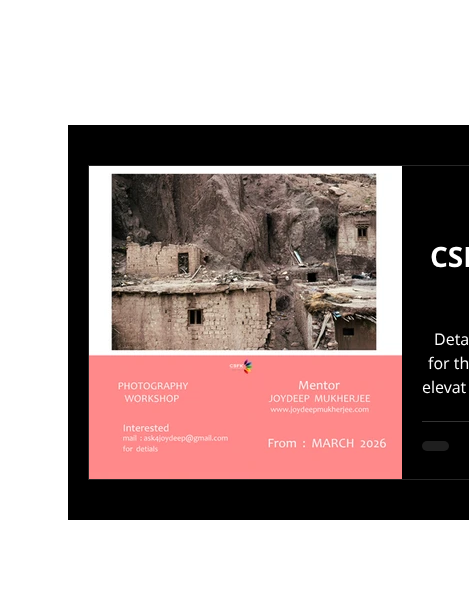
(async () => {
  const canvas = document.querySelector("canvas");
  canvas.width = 469;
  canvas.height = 603;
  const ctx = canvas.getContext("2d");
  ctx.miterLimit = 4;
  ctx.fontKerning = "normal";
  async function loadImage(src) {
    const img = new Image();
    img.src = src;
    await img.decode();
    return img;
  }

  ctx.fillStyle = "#ffffff";
  ctx.fillRect(0, 0, 469, 603);
  ctx.fillStyle = "#000000";
  ctx.fillRect(68, 125, 401, 395);
  ctx.strokeStyle = "#262626";
  ctx.strokeRect(88.5, 165.5, 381, 314);
  ctx.drawImage(await loadImage("img/1.png"), 89, 166, 313, 306);
  ctx.drawImage(await loadImage("img/2.png"), 89, 472, 313, 7);
  ctx.fillStyle = "#333333";
  ctx.fillRect(422, 421, 47, 1);
  ctx.fillStyle = "#1f1f1f";
  ctx.beginPath();
  ctx.roundRect(422, 441, 27, 10, 5);
  ctx.fill();
  ctx.font = "bold 28px Open Sans";
  ctx.fillStyle = "#ffffff";
  ctx.fillText("CSF", 430, 267);
  ctx.font = "16px Open Sans";
  for (const [text, x, y] of [
    ["Deta", 434, 345],
    ["for th", 428, 369],
    ["elevat", 422, 393],
  ]) {
    ctx.fillText(text, x, y);
  }
})();
